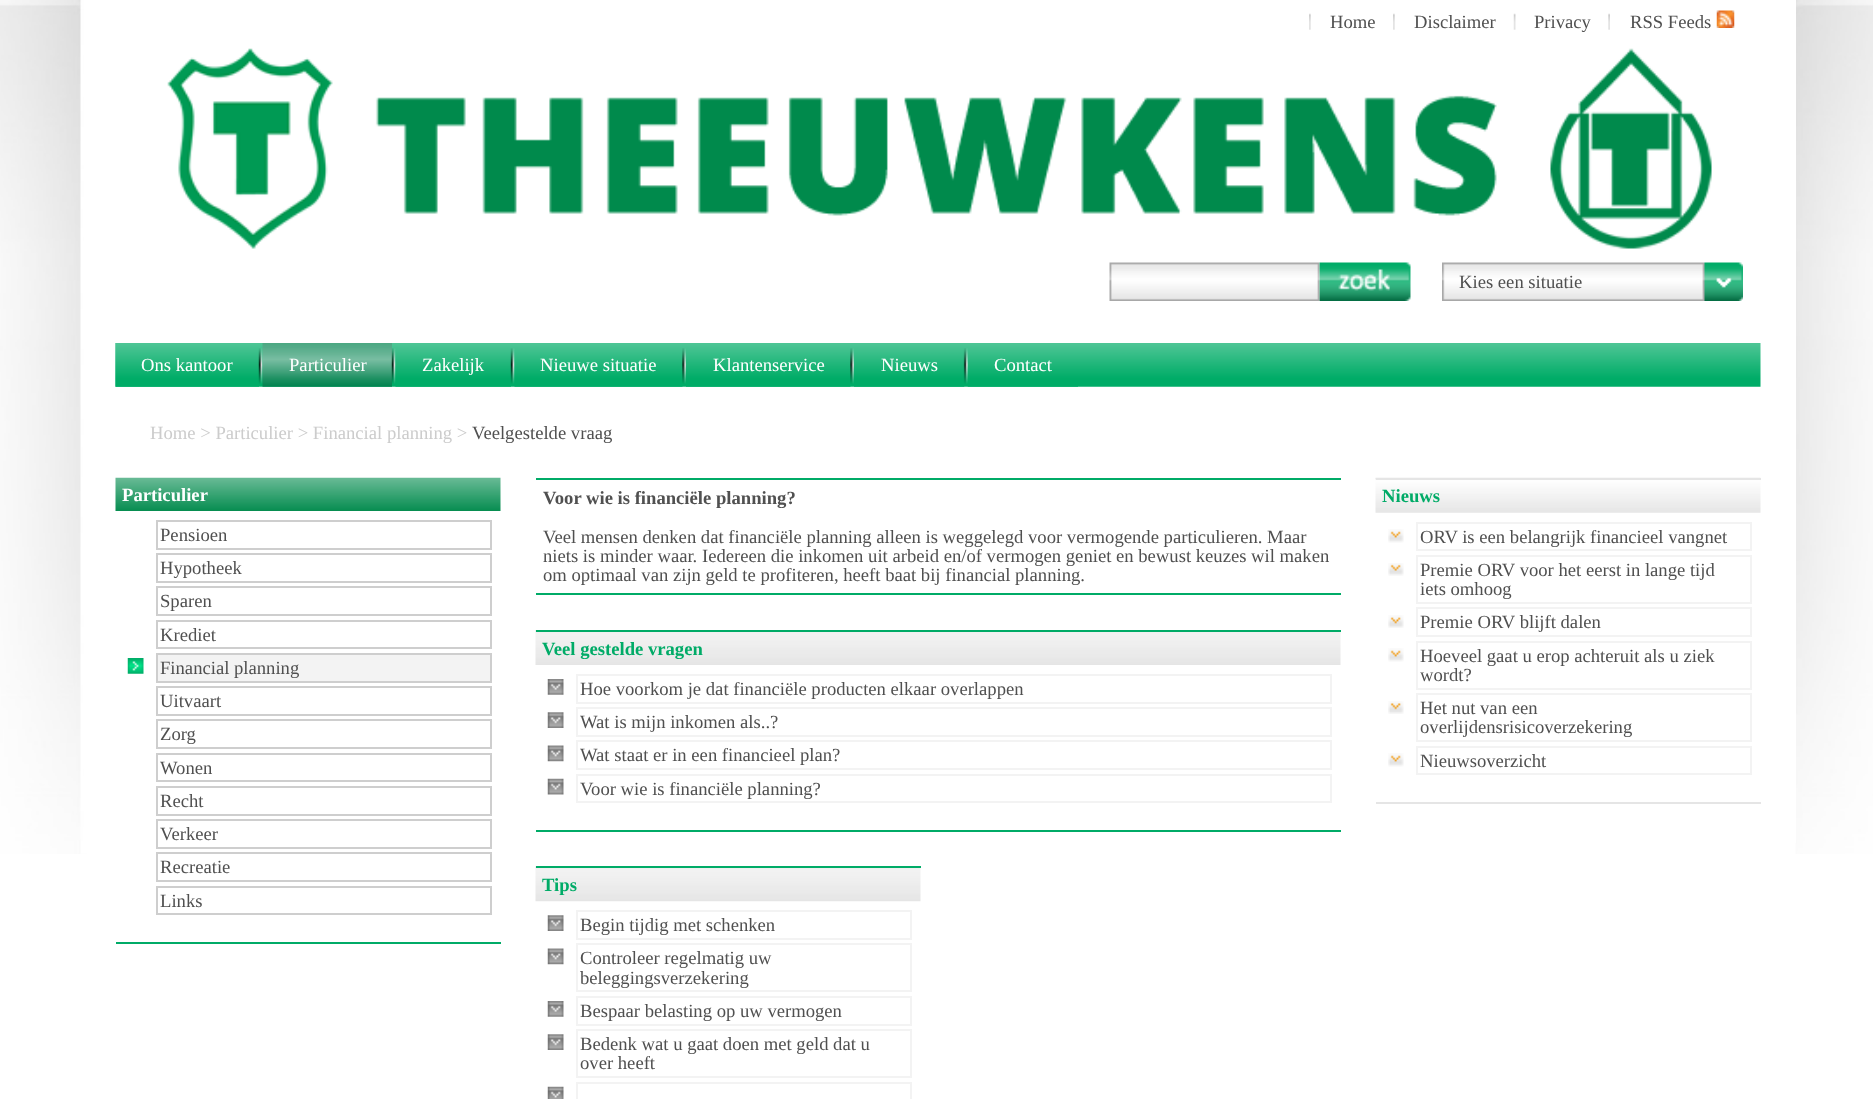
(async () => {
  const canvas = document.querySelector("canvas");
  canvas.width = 1873;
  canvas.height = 1099;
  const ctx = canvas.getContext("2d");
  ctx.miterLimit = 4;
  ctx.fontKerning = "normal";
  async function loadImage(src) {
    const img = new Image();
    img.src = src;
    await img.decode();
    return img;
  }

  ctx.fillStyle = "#ffffff";
  ctx.fillRect(0, 0, 1873, 1099);
  ctx.drawImage(await loadImage("img/1.png"), 0, 0, 1873, 854);
  ctx.fillRect(84, 0, 1712, 843);
  ctx.drawImage(await loadImage("img/2.png"), 1309, 13, 2, 17);
  ctx.drawImage(await loadImage("img/2.png"), 1393, 13, 2, 17);
  ctx.drawImage(await loadImage("img/3.png"), 1513, 13, 3, 17);
  ctx.drawImage(await loadImage("img/4.png"), 1608, 13, 2, 17);
  ctx.drawImage(await loadImage("img/5.png"), 1716, 10, 19, 18);
  ctx.drawImage(await loadImage("img/6.png"), 167, 48, 1545, 201);
  ctx.drawImage(await loadImage("img/7.png"), 1109, 262, 211, 39);
  ctx.drawImage(await loadImage("img/8.png"), 1319, 262, 92, 39);
  ctx.drawImage(await loadImage("img/9.png"), 1442, 262, 301, 39);
  ctx.drawImage(await loadImage("img/10.png"), 115, 343, 1646, 44);
  ctx.drawImage(await loadImage("img/11.png"), 115, 343, 144, 44);
  ctx.drawImage(await loadImage("img/12.png"), 258, 348, 5, 36);
  ctx.drawImage(await loadImage("img/13.png"), 262, 343, 130, 44);
  ctx.drawImage(await loadImage("img/14.png"), 391, 348, 5, 36);
  ctx.drawImage(await loadImage("img/15.png"), 395, 350, 116, 37);
  ctx.drawImage(await loadImage("img/16.png"), 510, 348, 5, 36);
  ctx.drawImage(await loadImage("img/17.png"), 514, 350, 169, 37);
  ctx.drawImage(await loadImage("img/18.png"), 682, 348, 4, 36);
  ctx.drawImage(await loadImage("img/19.png"), 686, 350, 165, 37);
  ctx.drawImage(await loadImage("img/20.png"), 850, 348, 4, 36);
  ctx.drawImage(await loadImage("img/21.png"), 854, 350, 111, 37);
  ctx.drawImage(await loadImage("img/22.png"), 963, 348, 5, 36);
  ctx.drawImage(await loadImage("img/23.png"), 967, 349, 111, 38);
  ctx.drawImage(await loadImage("img/24.png"), 115, 477, 386, 34);
  ctx.fillStyle = "#00ab67";
  ctx.fillRect(116, 942, 385, 2);
  ctx.strokeStyle = "#cecece";
  ctx.lineWidth = 2;
  ctx.strokeRect(157, 521, 334, 28);
  ctx.strokeRect(157, 554, 334, 28);
  ctx.strokeRect(157, 587, 334, 28);
  ctx.strokeRect(157, 621, 334, 27);
  ctx.fillStyle = "#f3f3f3";
  ctx.beginPath();
  ctx.rect(157, 654, 334, 28);
  ctx.fill();
  ctx.stroke();
  ctx.drawImage(await loadImage("img/25.png"), 127, 658, 17, 16);
  ctx.strokeRect(157, 687, 334, 28);
  ctx.strokeRect(157, 720, 334, 28);
  ctx.strokeRect(157, 754, 334, 27);
  ctx.strokeRect(157, 787, 334, 28);
  ctx.strokeRect(157, 820, 334, 28);
  ctx.strokeRect(157, 853, 334, 28);
  ctx.strokeRect(157, 887, 334, 27);
  ctx.fillStyle = "#00ab67";
  ctx.fillRect(536, 593, 805, 2);
  ctx.fillRect(536, 478, 805, 2);
  ctx.drawImage(await loadImage("img/26.png"), 535, 630, 806, 35);
  ctx.fillRect(536, 630, 805, 2);
  ctx.fillRect(536, 830, 805, 2);
  ctx.strokeStyle = "#f3f3f3";
  ctx.strokeRect(577, 675, 754, 28);
  ctx.drawImage(await loadImage("img/27.png"), 547, 679, 17, 16);
  ctx.strokeRect(577, 708, 754, 28);
  ctx.drawImage(await loadImage("img/28.png"), 547, 712, 17, 16);
  ctx.strokeRect(577, 741, 754, 28);
  ctx.drawImage(await loadImage("img/29.png"), 547, 745, 17, 17);
  ctx.strokeRect(577, 775, 754, 27);
  ctx.drawImage(await loadImage("img/30.png"), 547, 778, 17, 17);
  ctx.drawImage(await loadImage("img/31.png"), 535, 866, 386, 36);
  ctx.fillRect(536, 866, 385, 2);
  ctx.strokeRect(577, 911, 334, 28);
  ctx.drawImage(await loadImage("img/28.png"), 547, 915, 17, 16);
  ctx.strokeRect(577, 944, 334, 47);
  ctx.drawImage(await loadImage("img/29.png"), 547, 948, 17, 17);
  ctx.strokeRect(577, 997, 334, 28);
  ctx.drawImage(await loadImage("img/27.png"), 547, 1001, 17, 16);
  ctx.strokeRect(577, 1030, 334, 47);
  ctx.drawImage(await loadImage("img/28.png"), 547, 1034, 17, 16);
  ctx.strokeRect(577, 1083, 334, 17);
  ctx.drawImage(await loadImage("img/32.png"), 547, 1086, 17, 13);
  ctx.drawImage(await loadImage("img/33.png"), 1375, 477, 386, 36);
  ctx.fillStyle = "#e5e5e5";
  ctx.fillRect(1376, 478, 385, 2);
  ctx.fillRect(1376, 802, 385, 2);
  ctx.strokeRect(1417, 523, 334, 27);
  ctx.drawImage(await loadImage("img/34.png"), 1388, 529, 16, 14);
  ctx.strokeRect(1417, 556, 334, 47);
  ctx.drawImage(await loadImage("img/35.png"), 1388, 563, 16, 13);
  ctx.strokeRect(1417, 608, 334, 28);
  ctx.drawImage(await loadImage("img/36.png"), 1388, 615, 16, 13);
  ctx.strokeRect(1417, 642, 334, 47);
  ctx.drawImage(await loadImage("img/34.png"), 1388, 648, 16, 14);
  ctx.strokeRect(1417, 694, 334, 47);
  ctx.drawImage(await loadImage("img/37.png"), 1388, 701, 16, 13);
  ctx.strokeRect(1417, 747, 334, 27);
  ctx.drawImage(await loadImage("img/34.png"), 1388, 753, 16, 14);
  ctx.font = "18.65px Liberation Serif";
  ctx.fillStyle = "#505050";
  for (const [text, x, y] of [
    ["Home", 1330, 28],
    ["Disclaimer", 1414, 28],
    ["Privacy", 1534, 28],
    ["RSS Feeds", 1630, 28],
    ["Kies een situatie", 1459, 288],
  ]) {
    ctx.fillText(text, x, y);
  }
  ctx.fillStyle = "#ffffff";
  for (const [text, x, y] of [
    ["Ons kantoor", 141, 371],
    ["Particulier", 289, 371],
    ["Zakelijk", 422, 371],
    ["Nieuwe situatie", 540, 371],
    ["Klantenservice", 713, 371],
    ["Nieuws", 881, 371],
    ["Contact", 994, 371],
  ]) {
    ctx.fillText(text, x, y);
  }
  ctx.fillStyle = "#cccccc";
  ctx.fillText("Home > Particulier > Financial planning >", 150, 439);
  ctx.fillStyle = "#505050";
  ctx.fillText("Veelgestelde vraag", 472, 439);
  ctx.font = "bold 18.65px Liberation Serif";
  ctx.fillStyle = "#ffffff";
  ctx.fillText("Particulier", 122, 501);
  ctx.font = "18.65px Liberation Serif";
  ctx.fillStyle = "#505050";
  for (const [text, x, y] of [
    ["Pensioen", 160, 541],
    ["Hypotheek", 160, 574],
    ["Sparen", 160, 607],
    ["Krediet", 160, 641],
    ["Financial planning", 160, 674],
    ["Uitvaart", 160, 707],
    ["Zorg", 160, 740],
    ["Wonen", 160, 774],
    ["Recht", 160, 807],
    ["Verkeer", 160, 840],
    ["Recreatie", 160, 873],
    ["Links", 160, 907],
  ]) {
    ctx.fillText(text, x, y);
  }
  ctx.font = "bold 18.65px Liberation Serif";
  ctx.fillText("Voor wie is financiële planning?", 543, 504);
  ctx.font = "18.65px Liberation Serif";
  for (const [text, x, y] of [
    ["Veel mensen denken dat financiële planning alleen is weggelegd voor vermogende particulieren. Maar", 543, 543],
    ["niets is minder waar. Iedereen die inkomen uit arbeid en/of vermogen geniet en bewust keuzes wil maken", 543, 562],
    ["om optimaal van zijn geld te profiteren, heeft baat bij financial planning.", 543, 581],
  ]) {
    ctx.fillText(text, x, y);
  }
  ctx.font = "bold 18.65px Liberation Serif";
  ctx.fillStyle = "#00ab67";
  ctx.fillText("Veel gestelde vragen", 542, 655);
  ctx.font = "18.65px Liberation Serif";
  ctx.fillStyle = "#505050";
  for (const [text, x, y] of [
    ["Hoe voorkom je dat financiële producten elkaar overlappen", 580, 695],
    ["Wat is mijn inkomen als..?", 580, 728],
    ["Wat staat er in een financieel plan?", 580, 761],
    ["Voor wie is financiële planning?", 580, 795],
  ]) {
    ctx.fillText(text, x, y);
  }
  ctx.font = "bold 18.65px Liberation Serif";
  ctx.fillStyle = "#00ab67";
  ctx.fillText("Tips", 542, 891);
  ctx.font = "18.65px Liberation Serif";
  ctx.fillStyle = "#505050";
  for (const [text, x, y] of [
    ["Begin tijdig met schenken", 580, 931],
    ["Controleer regelmatig uw", 580, 964],
    ["beleggingsverzekering", 580, 984],
    ["Bespaar belasting op uw vermogen", 580, 1017],
    ["Bedenk wat u gaat doen met geld dat u", 580, 1050],
    ["over heeft", 580, 1069],
  ]) {
    ctx.fillText(text, x, y);
  }
  ctx.font = "bold 18.65px Liberation Serif";
  ctx.fillStyle = "#00ab67";
  ctx.fillText("Nieuws", 1382, 502);
  ctx.font = "18.65px Liberation Serif";
  ctx.fillStyle = "#505050";
  for (const [text, x, y] of [
    ["ORV is een belangrijk financieel vangnet", 1420, 543],
    ["Premie ORV voor het eerst in lange tijd", 1420, 576],
    ["iets omhoog", 1420, 595],
    ["Premie ORV blijft dalen", 1420, 628],
    ["Hoeveel gaat u erop achteruit als u ziek", 1420, 662],
    ["wordt?", 1420, 681],
    ["Het nut van een", 1420, 714],
    ["overlijdensrisicoverzekering", 1420, 733],
    ["Nieuwsoverzicht", 1420, 767],
  ]) {
    ctx.fillText(text, x, y);
  }
})();
